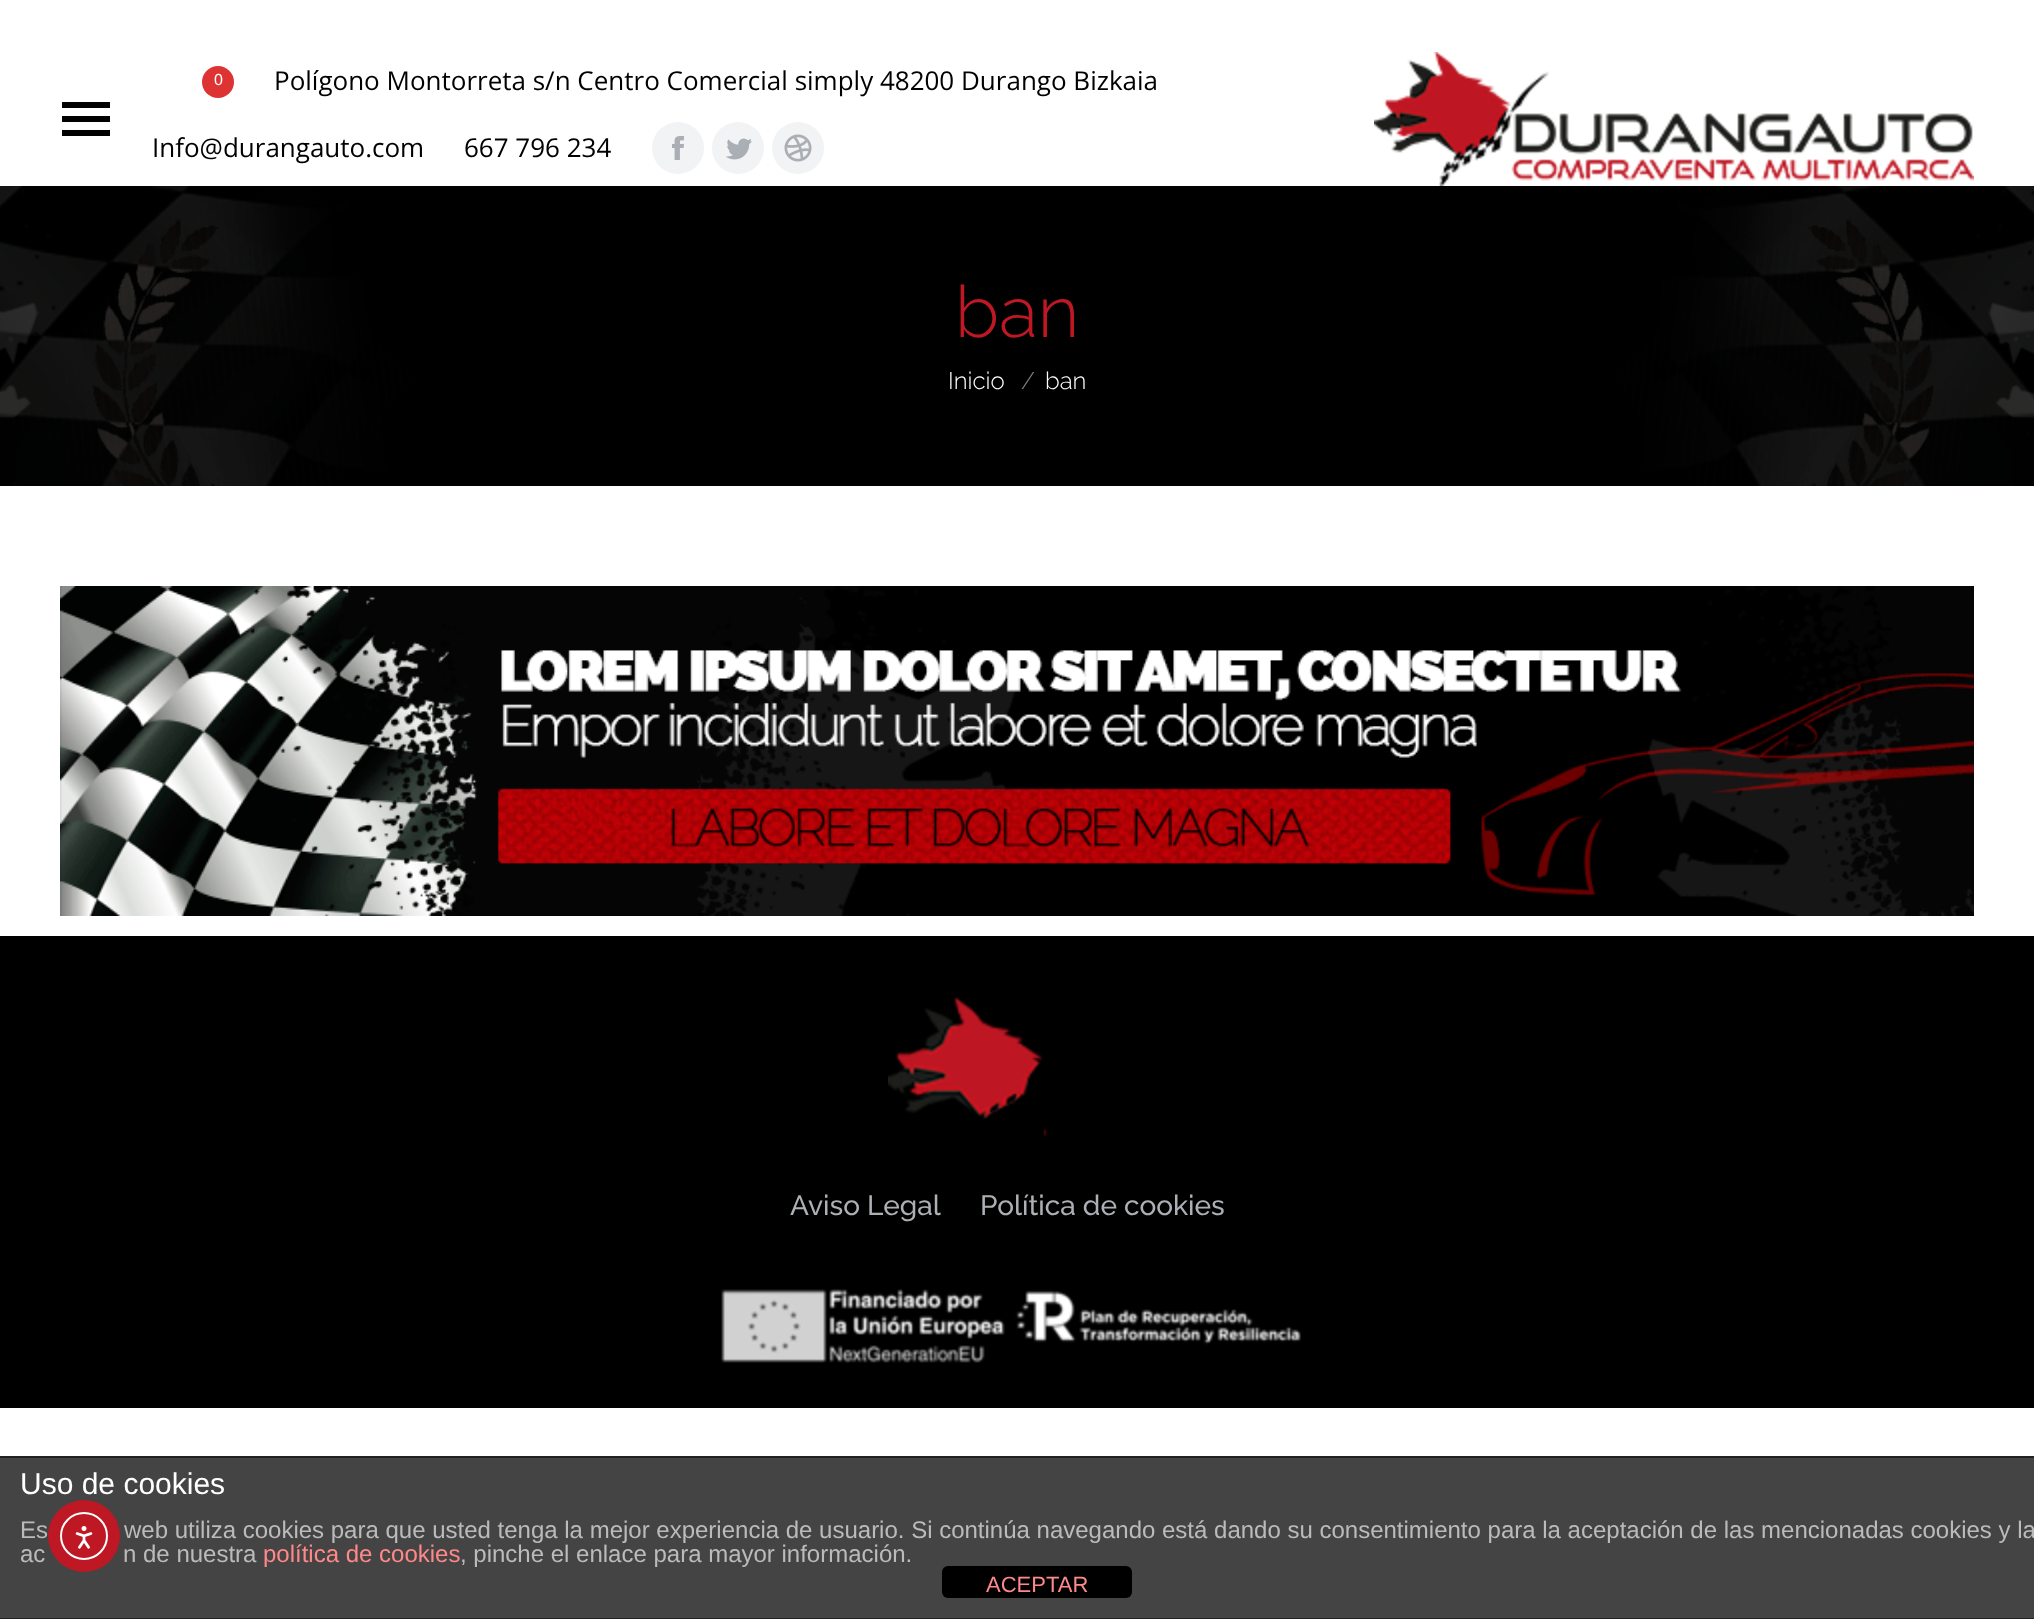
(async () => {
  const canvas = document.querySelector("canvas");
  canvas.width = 2034;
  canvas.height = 1619;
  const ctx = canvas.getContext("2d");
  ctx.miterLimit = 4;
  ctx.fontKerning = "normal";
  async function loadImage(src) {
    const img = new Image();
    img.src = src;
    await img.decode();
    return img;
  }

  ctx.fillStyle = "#ffffff";
  ctx.fillRect(0, 0, 2034, 1619);
  for (const [x, y, w, h, color] of [
    [62, 102, 48, 6, "#000000"],
    [62, 116, 48, 6, "#000000"],
    [62, 130, 48, 6, "#000000"],
  ]) {
    ctx.fillStyle = color;
    ctx.fillRect(x, y, w, h);
  }
  ctx.fillStyle = "#dd3333";
  ctx.beginPath();
  ctx.arc(218, 82, 16, 0, Math.PI * 2);
  ctx.fill();
  ctx.fillStyle = "#f2f3f4";
  ctx.beginPath();
  ctx.arc(678, 148, 26, 0, Math.PI * 2);
  ctx.fill();
  ctx.drawImage(await loadImage("img/1.png"), 672, 136, 12, 24);
  ctx.beginPath();
  ctx.arc(738, 148, 26, 0, Math.PI * 2);
  ctx.fill();
  ctx.drawImage(await loadImage("img/2.png"), 726, 138, 26, 22);
  ctx.beginPath();
  ctx.arc(798, 148, 26, 0, Math.PI * 2);
  ctx.fill();
  ctx.drawImage(await loadImage("img/3.png"), 784, 134, 28, 28);
  ctx.drawImage(await loadImage("img/4.png"), 1374, 52, 600, 134);
  ctx.drawImage(await loadImage("img/5.png"), 0, 186, 2034, 300);
  ctx.drawImage(await loadImage("img/6.png"), 60, 586, 1914, 330);
  ctx.fillStyle = "#000000";
  ctx.fillRect(0, 936, 2034, 472);
  ctx.drawImage(await loadImage("img/7.png"), 888, 997, 160, 140);
  ctx.drawImage(await loadImage("img/8.png"), 721, 1289, 580, 74);
  for (const [x, y, w, h, color] of [
    [0, 1458, 2034, 160, "#444444"],
    [0, 1456, 2034, 2, "#222222"],
    [0, 1618, 2034, 1, "#222222"],
  ]) {
    ctx.fillStyle = color;
    ctx.fillRect(x, y, w, h);
  }
  ctx.fillStyle = "#000000";
  ctx.beginPath();
  ctx.roundRect(942, 1566, 190, 32, 6);
  ctx.fill();
  ctx.fillStyle = "#be1824";
  ctx.beginPath();
  ctx.arc(84, 1536, 36, 0, Math.PI * 2);
  ctx.fill();
  ctx.beginPath();
  ctx.arc(84, 1536, 23, 0, Math.PI * 2);
  ctx.strokeStyle = "#ffffff";
  ctx.lineWidth = 2;
  ctx.stroke();
  ctx.drawImage(await loadImage("img/9.png"), 75, 1526, 18, 23);
  ctx.font = "16px Liberation Sans";
  ctx.fillStyle = "#ffffff";
  ctx.fillText("0", 214, 85);
  ctx.font = "26px Open Sans";
  ctx.fillStyle = "#000000";
  for (const [text, x, y] of [
    ["Polígono Montorreta s/n Centro Comercial simply 48200 Durango Bizkaia", 274, 90],
    ["Info@durangauto.com", 152, 157],
    ["667 796 234", 464, 157],
  ]) {
    ctx.fillText(text, x, y);
  }
  ctx.font = "300 72px Raleway";
  ctx.fillStyle = "#be1824";
  ctx.fillText("ban", 955, 337);
  ctx.font = "300 24px Raleway";
  ctx.fillStyle = "#ffffff";
  ctx.fillText("Inicio", 948, 389);
  ctx.fillStyle = "#808080";
  ctx.fillText("/", 1021, 389);
  ctx.fillStyle = "#ffffff";
  ctx.fillText("ban", 1045, 389);
  ctx.font = "500 28px Raleway";
  ctx.fillStyle = "#acb0b4";
  ctx.fillText("Aviso Legal", 790, 1215);
  ctx.fillText("Política de cookies", 980, 1215);
  ctx.font = "30px Liberation Sans";
  ctx.fillStyle = "#ffffff";
  ctx.fillText("Uso de cookies", 20, 1494);
  ctx.font = "24px Liberation Sans";
  ctx.fillStyle = "#bbbbbb";
  for (const [text, x, y] of [
    ["Es", 20, 1538],
    ["web utiliza cookies para que usted tenga la mejor experiencia de usuario. Si continúa navegando está dando su consentimiento para la aceptación de las mencionadas cookies y la", 124, 1538],
    ["ac", 20, 1562],
    ["n de nuestra", 123, 1562],
  ]) {
    ctx.fillText(text, x, y);
  }
  ctx.fillStyle = "#ff8888";
  ctx.fillText("política de cookies", 263, 1562);
  ctx.fillStyle = "#bbbbbb";
  ctx.fillText(", pinche el enlace para mayor información.", 460, 1562);
  ctx.font = "22px Liberation Sans";
  ctx.fillStyle = "#ff8888";
  ctx.fillText("ACEPTAR", 986, 1592);
})();
